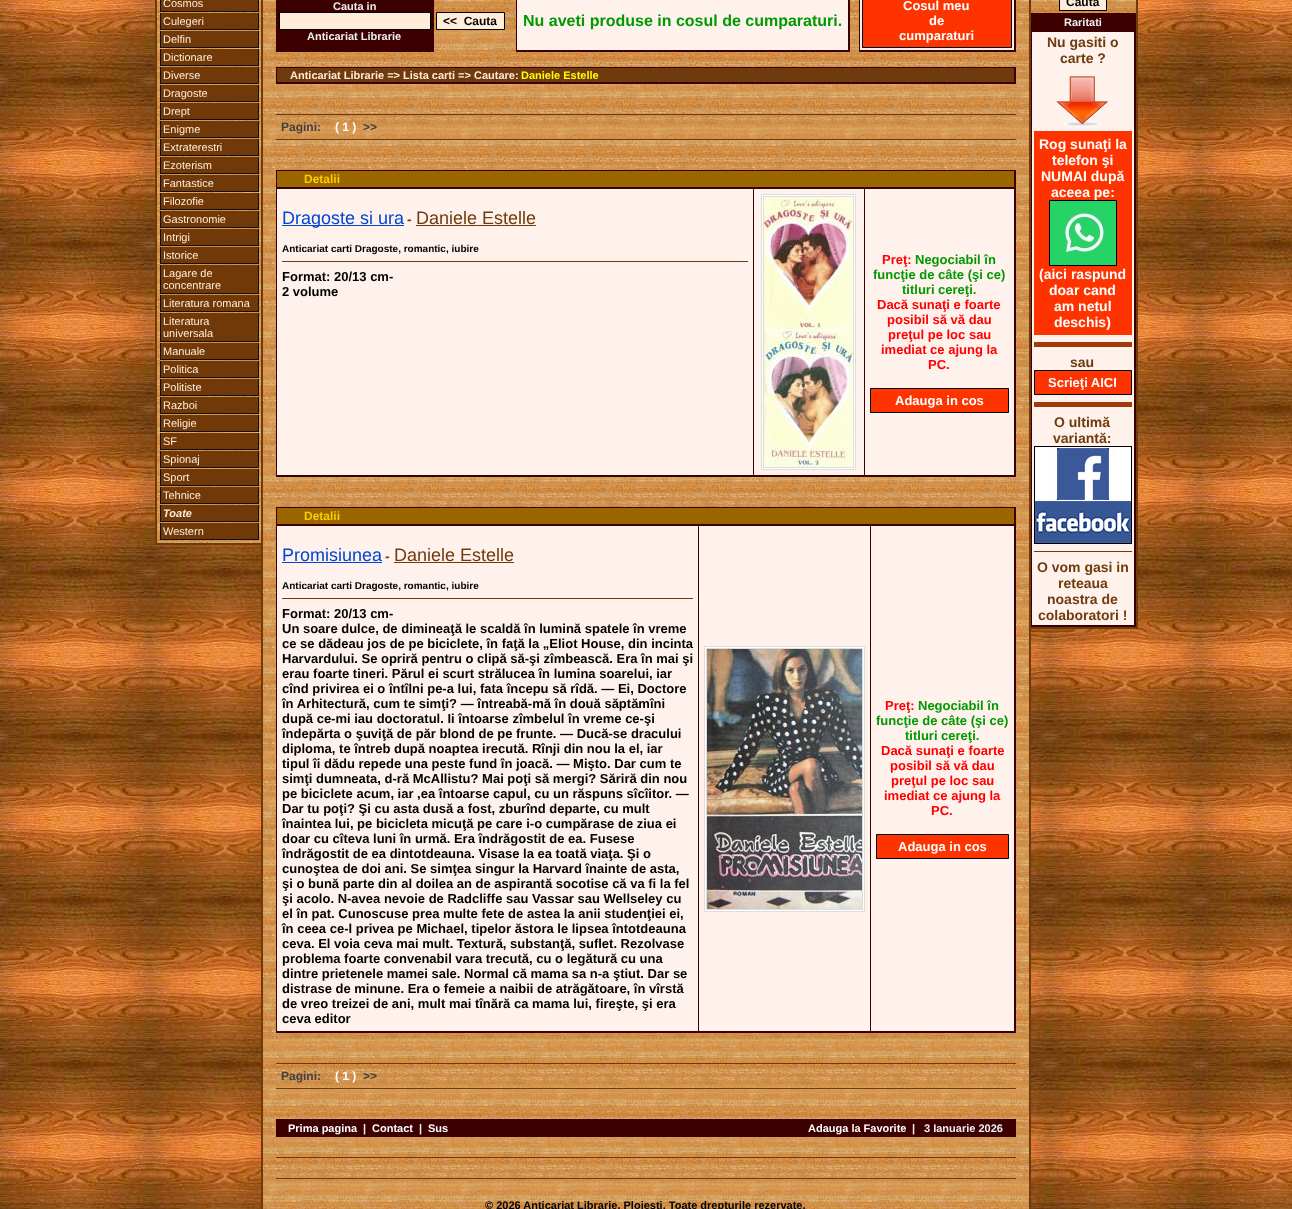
(async () => {
  const canvas = document.querySelector("canvas");
  canvas.width = 1292;
  canvas.height = 1209;
  const ctx = canvas.getContext("2d");
  ctx.miterLimit = 4;
  ctx.fontKerning = "normal";
  async function loadImage(src) {
    const img = new Image();
    img.src = src;
    await img.decode();
    return img;
  }

  ctx.fillStyle = "#ffffff";
  ctx.fillRect(0, 0, 1292, 1209);
  ctx.drawImage(await loadImage("img/1.png"), 0, 0, 1292, 1209);
  ctx.drawImage(await loadImage("img/2.png"), 157, 0, 104, 543);
  for (const [x, y, w, h, color] of [
    [155, 543, 106, 2, "#6f3b0c"],
    [155, 0, 2, 545, "#6f3b0c"],
    [161, 0, 97, 11, "#713908"],
    [258, 0, 1, 12, "#101010"],
    [160, 11, 99, 1, "#101010"],
    [160, 0, 1, 12, "#101010"],
    [161, 13, 97, 16, "#713908"],
    [258, 13, 1, 17, "#101010"],
    [160, 29, 99, 1, "#101010"],
    [160, 13, 1, 17, "#101010"],
    [161, 31, 97, 16, "#713908"],
    [258, 31, 1, 17, "#101010"],
    [160, 47, 99, 1, "#101010"],
    [160, 31, 1, 17, "#101010"],
    [161, 49, 97, 16, "#713908"],
    [258, 49, 1, 17, "#101010"],
    [160, 65, 99, 1, "#101010"],
    [160, 49, 1, 17, "#101010"],
    [161, 67, 97, 16, "#713908"],
    [258, 67, 1, 17, "#101010"],
    [160, 83, 99, 1, "#101010"],
    [160, 67, 1, 17, "#101010"],
    [161, 85, 97, 16, "#713908"],
    [258, 85, 1, 17, "#101010"],
    [160, 101, 99, 1, "#101010"],
    [160, 85, 1, 17, "#101010"],
    [161, 103, 97, 16, "#713908"],
    [258, 103, 1, 17, "#101010"],
    [160, 119, 99, 1, "#101010"],
    [160, 103, 1, 17, "#101010"],
    [161, 121, 97, 16, "#713908"],
    [258, 121, 1, 17, "#101010"],
    [160, 137, 99, 1, "#101010"],
    [160, 121, 1, 17, "#101010"],
    [161, 139, 97, 16, "#713908"],
    [258, 139, 1, 17, "#101010"],
    [160, 155, 99, 1, "#101010"],
    [160, 139, 1, 17, "#101010"],
    [161, 157, 97, 16, "#713908"],
    [258, 157, 1, 17, "#101010"],
    [160, 173, 99, 1, "#101010"],
    [160, 157, 1, 17, "#101010"],
    [161, 175, 97, 16, "#713908"],
    [258, 175, 1, 17, "#101010"],
    [160, 191, 99, 1, "#101010"],
    [160, 175, 1, 17, "#101010"],
    [161, 193, 97, 16, "#713908"],
    [258, 193, 1, 17, "#101010"],
    [160, 209, 99, 1, "#101010"],
    [160, 193, 1, 17, "#101010"],
    [161, 211, 97, 16, "#713908"],
    [258, 211, 1, 17, "#101010"],
    [160, 227, 99, 1, "#101010"],
    [160, 211, 1, 17, "#101010"],
    [161, 229, 97, 16, "#713908"],
    [258, 229, 1, 17, "#101010"],
    [160, 245, 99, 1, "#101010"],
    [160, 229, 1, 17, "#101010"],
    [161, 247, 97, 16, "#713908"],
    [258, 247, 1, 17, "#101010"],
    [160, 263, 99, 1, "#101010"],
    [160, 247, 1, 17, "#101010"],
    [161, 265, 97, 28, "#713908"],
    [258, 265, 1, 29, "#101010"],
    [160, 293, 99, 1, "#101010"],
    [160, 265, 1, 29, "#101010"],
    [161, 295, 97, 16, "#713908"],
    [258, 295, 1, 17, "#101010"],
    [160, 311, 99, 1, "#101010"],
    [160, 295, 1, 17, "#101010"],
    [161, 313, 97, 28, "#713908"],
    [258, 313, 1, 29, "#101010"],
    [160, 341, 99, 1, "#101010"],
    [160, 313, 1, 29, "#101010"],
    [161, 343, 97, 16, "#713908"],
    [258, 343, 1, 17, "#101010"],
    [160, 359, 99, 1, "#101010"],
    [160, 343, 1, 17, "#101010"],
    [161, 361, 97, 16, "#713908"],
    [258, 361, 1, 17, "#101010"],
    [160, 377, 99, 1, "#101010"],
    [160, 361, 1, 17, "#101010"],
    [161, 379, 97, 16, "#713908"],
    [258, 379, 1, 17, "#101010"],
    [160, 395, 99, 1, "#101010"],
    [160, 379, 1, 17, "#101010"],
    [161, 397, 97, 16, "#713908"],
    [258, 397, 1, 17, "#101010"],
    [160, 413, 99, 1, "#101010"],
    [160, 397, 1, 17, "#101010"],
    [161, 415, 97, 16, "#713908"],
    [258, 415, 1, 17, "#101010"],
    [160, 431, 99, 1, "#101010"],
    [160, 415, 1, 17, "#101010"],
    [161, 433, 97, 16, "#713908"],
    [258, 433, 1, 17, "#101010"],
    [160, 449, 99, 1, "#101010"],
    [160, 433, 1, 17, "#101010"],
    [161, 451, 97, 16, "#713908"],
    [258, 451, 1, 17, "#101010"],
    [160, 467, 99, 1, "#101010"],
    [160, 451, 1, 17, "#101010"],
    [161, 469, 97, 16, "#713908"],
    [258, 469, 1, 17, "#101010"],
    [160, 485, 99, 1, "#101010"],
    [160, 469, 1, 17, "#101010"],
    [161, 487, 97, 16, "#713908"],
    [258, 487, 1, 17, "#101010"],
    [160, 503, 99, 1, "#101010"],
    [160, 487, 1, 17, "#101010"],
    [161, 505, 97, 16, "#713908"],
    [258, 505, 1, 17, "#101010"],
    [160, 521, 99, 1, "#101010"],
    [160, 505, 1, 17, "#101010"],
    [161, 523, 97, 16, "#713908"],
    [258, 523, 1, 17, "#101010"],
    [160, 539, 99, 1, "#101010"],
    [160, 523, 1, 17, "#101010"],
  ]) {
    ctx.fillStyle = color;
    ctx.fillRect(x, y, w, h);
  }
  ctx.drawImage(await loadImage("img/3.png"), 263, 0, 766, 1209);
  ctx.strokeStyle = "#6f3b0c";
  ctx.lineWidth = 2;
  ctx.strokeRect(262, -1, 768, 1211);
  ctx.fillStyle = "#3c0000";
  ctx.fillRect(276, 0, 158, 52);
  ctx.fillStyle = "#ffecd9";
  ctx.beginPath();
  ctx.rect(279.5, 12.5, 151, 17);
  ctx.fill();
  ctx.strokeStyle = "#000000";
  ctx.lineWidth = 1;
  ctx.stroke();
  ctx.beginPath();
  ctx.rect(436.5, 12.5, 68, 17);
  ctx.fill();
  ctx.stroke();
  for (const [x, y, w, h, color] of [
    [517, 0, 331, 50, "#fff2ec"],
    [848, 0, 2, 52, "#3c0000"],
    [516, 50, 334, 2, "#3c0000"],
    [516, 0, 1, 52, "#3c0000"],
    [860, 0, 154, 50, "#fff2ec"],
    [1014, 0, 2, 52, "#3c0000"],
    [859, 50, 157, 2, "#3c0000"],
    [859, 0, 1, 52, "#3c0000"],
  ]) {
    ctx.fillStyle = color;
    ctx.fillRect(x, y, w, h);
  }
  ctx.fillStyle = "#ff3300";
  ctx.beginPath();
  ctx.rect(862.5, -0.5, 149, 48);
  ctx.fill();
  ctx.stroke();
  for (const [x, y, w, h, color] of [
    [277, 68, 737, 14, "#6f3b0c"],
    [276, 67, 740, 1, "#3c0000"],
    [1014, 67, 2, 17, "#3c0000"],
    [276, 82, 740, 2, "#3c0000"],
    [276, 67, 1, 17, "#3c0000"],
    [276, 114, 740, 1, "#6f3b0c"],
    [276, 139, 740, 1, "#6f3b0c"],
    [277, 171, 737, 16, "#996600"],
    [276, 170, 740, 1, "#3c0000"],
    [1014, 170, 2, 18, "#3c0000"],
    [276, 187, 740, 1, "#3c0000"],
    [276, 170, 1, 18, "#3c0000"],
    [277, 189, 476, 286, "#fff2ec"],
    [276, 188, 740, 1, "#3c0000"],
    [276, 475, 588, 2, "#3c0000"],
    [276, 188, 1, 289, "#3c0000"],
    [282, 225, 122, 1, "#0046d5"],
    [416, 225, 120, 1, "#6f3b0c"],
    [282, 261, 466, 1, "#6f3b0c"],
    [754, 189, 110, 286, "#fff2ec"],
    [753, 188, 1, 289, "#3c0000"],
  ]) {
    ctx.fillStyle = color;
    ctx.fillRect(x, y, w, h);
  }
  ctx.fillStyle = "#ffffff";
  ctx.beginPath();
  ctx.rect(761.5, 194.5, 94, 275);
  ctx.fill();
  ctx.strokeStyle = "#dddddd";
  ctx.stroke();
  ctx.strokeRect(763.5, 196.5, 90, 271);
  ctx.drawImage(await loadImage("img/4.png"), 764, 197, 89, 270);
  for (const [x, y, w, h, color] of [
    [865, 189, 149, 286, "#fff2ec"],
    [1014, 188, 2, 289, "#3c0000"],
    [864, 475, 152, 2, "#3c0000"],
    [864, 188, 1, 289, "#3c0000"],
  ]) {
    ctx.fillStyle = color;
    ctx.fillRect(x, y, w, h);
  }
  ctx.fillStyle = "#ff3300";
  ctx.beginPath();
  ctx.rect(870.5, 388.5, 138, 24);
  ctx.fill();
  ctx.strokeStyle = "#000000";
  ctx.stroke();
  for (const [x, y, w, h, color] of [
    [277, 508, 737, 16, "#996600"],
    [276, 507, 740, 1, "#3c0000"],
    [1014, 507, 2, 18, "#3c0000"],
    [276, 524, 740, 1, "#3c0000"],
    [276, 507, 1, 18, "#3c0000"],
    [277, 526, 421, 505, "#fff2ec"],
    [276, 525, 740, 1, "#3c0000"],
    [276, 1031, 594, 2, "#3c0000"],
    [276, 525, 1, 508, "#3c0000"],
    [282, 562, 100, 1, "#0046d5"],
    [394, 562, 120, 1, "#6f3b0c"],
    [282, 598, 411, 1, "#6f3b0c"],
    [699, 526, 171, 505, "#fff2ec"],
    [698, 525, 1, 508, "#3c0000"],
  ]) {
    ctx.fillStyle = color;
    ctx.fillRect(x, y, w, h);
  }
  ctx.fillStyle = "#ffffff";
  ctx.beginPath();
  ctx.rect(704.5, 646.5, 160, 265);
  ctx.fill();
  ctx.strokeStyle = "#dddddd";
  ctx.stroke();
  ctx.strokeRect(706.5, 648.5, 156, 261);
  ctx.drawImage(await loadImage("img/5.png"), 707, 649, 155, 260);
  for (const [x, y, w, h, color] of [
    [871, 526, 143, 505, "#fff2ec"],
    [1014, 525, 2, 508, "#3c0000"],
    [870, 1031, 146, 2, "#3c0000"],
    [870, 525, 1, 508, "#3c0000"],
  ]) {
    ctx.fillStyle = color;
    ctx.fillRect(x, y, w, h);
  }
  ctx.fillStyle = "#ff3300";
  ctx.beginPath();
  ctx.rect(876.5, 834.5, 132, 24);
  ctx.fill();
  ctx.strokeStyle = "#000000";
  ctx.stroke();
  for (const [x, y, w, h, color] of [
    [276, 1063, 740, 1, "#6f3b0c"],
    [276, 1088, 740, 1, "#6f3b0c"],
    [276, 1119, 740, 18, "#3c0000"],
    [276, 1157, 740, 1, "#6f3b0c"],
    [276, 1178, 740, 1, "#6f3b0c"],
  ]) {
    ctx.fillStyle = color;
    ctx.fillRect(x, y, w, h);
  }
  ctx.drawImage(await loadImage("img/6.png"), 1031, 0, 105, 13);
  ctx.fillRect(1136, 0, 2, 629);
  ctx.fillRect(1031, 627, 107, 2);
  ctx.fillStyle = "#ffecd9";
  ctx.beginPath();
  ctx.rect(1059.5, -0.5, 47, 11);
  ctx.fill();
  ctx.stroke();
  for (const [x, y, w, h, color] of [
    [1031, 13, 105, 19, "#3c0000"],
    [1032, 32, 102, 593, "#fff2ec"],
    [1134, 31, 2, 596, "#3c0000"],
    [1031, 625, 105, 2, "#3c0000"],
    [1031, 31, 1, 596, "#3c0000"],
  ]) {
    ctx.fillStyle = color;
    ctx.fillRect(x, y, w, h);
  }
  ctx.drawImage(await loadImage("img/7.png"), 1056, 76, 53, 51);
  ctx.fillStyle = "#ff3300";
  ctx.fillRect(1034, 131, 98, 204);
  ctx.strokeRect(1049.5, 200.5, 67, 65);
  ctx.drawImage(await loadImage("img/8.png"), 1050, 201, 66, 64);
  ctx.fillStyle = "#a13b0c";
  ctx.fillRect(1034, 342, 98, 5);
  ctx.fillStyle = "#ff3300";
  ctx.beginPath();
  ctx.rect(1034.5, 370.5, 97, 24);
  ctx.fill();
  ctx.stroke();
  ctx.fillStyle = "#a13b0c";
  ctx.fillRect(1034, 402, 98, 5);
  ctx.strokeRect(1034.5, 446.5, 97, 97);
  ctx.drawImage(await loadImage("img/9.png"), 1035, 447, 96, 96);
  ctx.fillStyle = "#6f3b0c";
  ctx.fillRect(1034, 551, 98, 1);
  ctx.font = "11px Liberation Sans";
  ctx.fillStyle = "#ffecd9";
  for (const [text, x, y] of [
    ["Cosmos", 163, 7],
    ["Culegeri", 163, 25],
    ["Delfin", 163, 43],
    ["Dictionare", 163, 61],
    ["Diverse", 163, 79],
    ["Dragoste", 163, 97],
    ["Drept", 163, 115],
    ["Enigme", 163, 133],
    ["Extraterestri", 163, 151],
    ["Ezoterism", 163, 169],
    ["Fantastice", 163, 187],
    ["Filozofie", 163, 205],
    ["Gastronomie", 163, 223],
    ["Intrigi", 163, 241],
    ["Istorice", 163, 259],
    ["Lagare de", 163, 277],
    ["concentrare", 163, 289],
    ["Literatura romana", 163, 307],
    ["Literatura", 163, 325],
    ["universala", 163, 337],
    ["Manuale", 163, 355],
    ["Politica", 163, 373],
    ["Politiste", 163, 391],
    ["Razboi", 163, 409],
    ["Religie", 163, 427],
    ["SF", 163, 445],
    ["Spionaj", 163, 463],
    ["Sport", 163, 481],
    ["Tehnice", 163, 499],
  ]) {
    ctx.fillText(text, x, y);
  }
  ctx.font = "italic bold 11px Liberation Sans";
  ctx.fillText("Toate", 163, 517);
  ctx.font = "11px Liberation Sans";
  ctx.fillText("Western", 163, 535);
  ctx.font = "bold 11px Liberation Sans";
  ctx.fillStyle = "#efefef";
  ctx.fillText("Cauta in", 333, 10);
  ctx.fillText("Anticariat Librarie", 307, 40);
  ctx.font = "bold 12px Liberation Sans";
  ctx.fillStyle = "#000000";
  ctx.fillText("<<  Cauta", 443, 25);
  ctx.font = "bold 16px Liberation Sans";
  ctx.fillStyle = "#009900";
  ctx.fillText("Nu aveti produse in cosul de cumparaturi.", 523, 26);
  ctx.font = "bold 13px Liberation Sans";
  ctx.fillStyle = "#ffffff";
  for (const [text, x, y] of [
    ["Cosul meu", 903, 10],
    ["de", 929, 25],
    ["cumparaturi", 899, 40],
  ]) {
    ctx.fillText(text, x, y);
  }
  ctx.font = "bold 11px Liberation Sans";
  ctx.fillStyle = "#ffecd9";
  ctx.fillText("Anticariat Librarie => Lista carti => Cautare:", 290, 79);
  ctx.fillStyle = "#ffff00";
  ctx.fillText("Daniele Estelle", 521, 79);
  ctx.font = "bold 12px Liberation Sans";
  ctx.fillStyle = "#404040";
  ctx.fillText("Pagini:", 281, 131);
  ctx.fillStyle = "#ffffff";
  ctx.fillText("( 1 )", 335, 131);
  ctx.fillStyle = "#404040";
  ctx.fillText(">>", 363, 131);
  ctx.fillStyle = "#ffcc00";
  ctx.fillText("Detalii", 304, 183);
  ctx.font = "18px Liberation Sans";
  ctx.fillStyle = "#0046d5";
  ctx.fillText("Dragoste si ura", 282, 224);
  ctx.font = "bold 14px Liberation Sans";
  ctx.fillStyle = "#6f3b0c";
  ctx.fillText("-", 407, 224);
  ctx.font = "18px Liberation Sans";
  ctx.fillText("Daniele Estelle", 416, 224);
  ctx.font = "bold 10px Liberation Sans";
  ctx.fillStyle = "#000000";
  ctx.fillText("Anticariat carti Dragoste, romantic, iubire", 282, 252);
  ctx.font = "bold 13px Liberation Sans";
  ctx.fillText("Format: 20/13 cm-", 282, 281);
  ctx.fillText("2 volume", 282, 296);
  ctx.fillStyle = "#ff0000";
  ctx.fillText("Preţ:", 882, 264);
  ctx.fillStyle = "#009900";
  for (const [text, x, y] of [
    ["Negociabil în", 915, 264],
    ["funcţie de câte (şi ce)", 873, 279],
    ["titluri cereţi.", 902, 294],
  ]) {
    ctx.fillText(text, x, y);
  }
  ctx.fillStyle = "#ff0000";
  for (const [text, x, y] of [
    ["Dacă sunaţi e foarte", 877, 309],
    ["posibil să vă dau", 887, 324],
    ["preţul pe loc sau", 888, 339],
    ["imediat ce ajung la", 881, 354],
    ["PC.", 928, 369],
  ]) {
    ctx.fillText(text, x, y);
  }
  ctx.fillStyle = "#ffffff";
  ctx.fillText("Adauga in cos", 895, 405);
  ctx.font = "bold 12px Liberation Sans";
  ctx.fillStyle = "#ffcc00";
  ctx.fillText("Detalii", 304, 520);
  ctx.font = "18px Liberation Sans";
  ctx.fillStyle = "#0046d5";
  ctx.fillText("Promisiunea", 282, 561);
  ctx.font = "bold 14px Liberation Sans";
  ctx.fillStyle = "#6f3b0c";
  ctx.fillText("-", 385, 561);
  ctx.font = "18px Liberation Sans";
  ctx.fillText("Daniele Estelle", 394, 561);
  ctx.font = "bold 10px Liberation Sans";
  ctx.fillStyle = "#000000";
  ctx.fillText("Anticariat carti Dragoste, romantic, iubire", 282, 589);
  ctx.font = "bold 13px Liberation Sans";
  for (const [text, x, y] of [
    ["Format: 20/13 cm-", 282, 618],
    ["Un soare dulce, de dimineaţă le scaldă în lumină spatele în vreme", 282, 633],
    ["ce se dădeau jos de pe biciclete, în faţă la „Eliot House, din incinta", 282, 648],
    ["Harvardului. Se opriră pentru o clipă să-şi zîmbească. Era în mai şi", 282, 663],
    ["erau foarte tineri. Părul ei scurt strălucea în lumina soarelui, iar", 282, 678],
    ["cînd privirea ei o întîlni pe-a lui, fata începu să rîdă. — Ei, Doctore", 282, 693],
    ["în Arhitectură, cum te simţi? — întreabă-mă în două săptămîni", 282, 708],
    ["după ce-mi iau doctoratul. Ii întoarse zîmbelul în vreme ce-şi", 282, 723],
    ["îndepărta o şuviţă de păr blond de pe frunte. — Ducă-se dracului", 282, 738],
    ["diploma, te întreb după noaptea irecută. Rînji din nou la el, iar", 282, 753],
    ["tipul îi dădu repede una peste fund în joacă. — Mişto. Dar cum te", 282, 768],
    ["simţi dumneata, d-ră McAllistu? Mai poţi să mergi? Săriră din nou", 282, 783],
    ["pe biciclete acum, iar ,ea întoarse capul, cu un răspuns sîcîitor. —", 282, 798],
    ["Dar tu poţi? Şi cu asta dusă a fost, zburînd departe, cu mult", 282, 813],
    ["înaintea lui, pe bicicleta micuţă pe care i-o cumpărase de ziua ei", 282, 828],
    ["doar cu cîteva luni în urmă. Era îndrăgostit de ea. Fusese", 282, 843],
    ["îndrăgostit de ea dintotdeauna. Visase la ea toată viaţa. Şi o", 282, 858],
    ["cunoştea de doi ani. Se simţea singur la Harvard înainte de asta,", 282, 873],
    ["şi o bună parte din al doilea an de aspirantă socotise că va fi la fel", 282, 888],
    ["şi acolo. N-avea nevoie de Radcliffe sau Vassar sau Wellseley cu", 282, 903],
    ["el în pat. Cunoscuse prea multe fete de astea la anii studenţiei ei,", 282, 918],
    ["în ceea ce-l privea pe Michael, tipelor ăstora le lipsea întotdeauna", 282, 933],
    ["ceva. El voia ceva mai mult. Textură, substanţă, suflet. Rezolvase", 282, 948],
    ["problema foarte convenabil vara trecută, cu o legătură cu una", 282, 963],
    ["dintre prietenele mamei sale. Normal că mama sa n-a ştiut. Dar se", 282, 978],
    ["distrase de minune. Era o femeie a naibii de atrăgătoare, în vîrstă", 282, 993],
    ["de vreo treizei de ani, mult mai tînără ca mama lui, fireşte, şi era", 282, 1008],
    ["ceva editor", 282, 1023],
  ]) {
    ctx.fillText(text, x, y);
  }
  ctx.fillStyle = "#ff0000";
  ctx.fillText("Preţ:", 885, 710);
  ctx.fillStyle = "#009900";
  for (const [text, x, y] of [
    ["Negociabil în", 918, 710],
    ["funcţie de câte (şi ce)", 876, 725],
    ["titluri cereţi.", 905, 740],
  ]) {
    ctx.fillText(text, x, y);
  }
  ctx.fillStyle = "#ff0000";
  for (const [text, x, y] of [
    ["Dacă sunaţi e foarte", 881, 755],
    ["posibil să vă dau", 890, 770],
    ["preţul pe loc sau", 891, 785],
    ["imediat ce ajung la", 884, 800],
    ["PC.", 931, 815],
  ]) {
    ctx.fillText(text, x, y);
  }
  ctx.fillStyle = "#ffffff";
  ctx.fillText("Adauga in cos", 898, 851);
  ctx.font = "bold 12px Liberation Sans";
  ctx.fillStyle = "#404040";
  ctx.fillText("Pagini:", 281, 1080);
  ctx.fillStyle = "#ffffff";
  ctx.fillText("( 1 )", 335, 1080);
  ctx.fillStyle = "#404040";
  ctx.fillText(">>", 363, 1080);
  ctx.font = "bold 11px Liberation Sans";
  ctx.fillStyle = "#ffffff";
  ctx.fillText("Prima pagina", 288, 1132);
  ctx.fillStyle = "#efefef";
  ctx.fillText("|", 363, 1132);
  ctx.fillStyle = "#ffffff";
  ctx.fillText("Contact", 372, 1132);
  ctx.fillStyle = "#efefef";
  ctx.fillText("|", 419, 1132);
  ctx.fillStyle = "#ffffff";
  ctx.fillText("Sus", 428, 1132);
  ctx.fillText("Adauga la Favorite", 808, 1132);
  ctx.fillStyle = "#efefef";
  ctx.fillText("|", 912, 1132);
  ctx.fillText("3 Ianuarie 2026", 924, 1132);
  ctx.fillStyle = "#000000";
  ctx.fillText("© 2026 Anticariat Librarie, Ploiesti. Toate drepturile rezervate.", 485, 1209);
  ctx.font = "bold 12px Liberation Sans";
  ctx.fillText("Cauta", 1066, 6);
  ctx.font = "bold 11px Liberation Sans";
  ctx.fillStyle = "#efefef";
  ctx.fillText("Raritati", 1064, 26);
  ctx.font = "bold 14px Liberation Sans";
  ctx.fillStyle = "#6f3b0c";
  ctx.fillText("Nu gasiti o", 1047, 47);
  ctx.fillText("carte ?", 1060, 63);
  ctx.fillStyle = "#ffffff";
  for (const [text, x, y] of [
    ["Rog sunaţi la", 1039, 149],
    ["telefon şi", 1052, 165],
    ["NUMAI după", 1041, 181],
    ["aceea pe:", 1051, 197],
    ["(aici raspund", 1039, 279],
    ["doar cand", 1049, 295],
    ["am netul", 1054, 311],
    ["deschis)", 1054, 327],
  ]) {
    ctx.fillText(text, x, y);
  }
  ctx.fillStyle = "#6f3b0c";
  ctx.fillText("sau", 1070, 367);
  ctx.font = "bold 13px Liberation Sans";
  ctx.fillStyle = "#ffffff";
  ctx.fillText("Scrieţi AICI", 1048, 387);
  ctx.font = "bold 14px Liberation Sans";
  ctx.fillStyle = "#6f3b0c";
  for (const [text, x, y] of [
    ["O ultimă", 1054, 427],
    ["variantă:", 1053, 443],
    ["O vom gasi in", 1037, 572],
    ["reteaua", 1058, 588],
    ["noastra de", 1047, 604],
    ["colaboratori !", 1038, 620],
  ]) {
    ctx.fillText(text, x, y);
  }
})();
